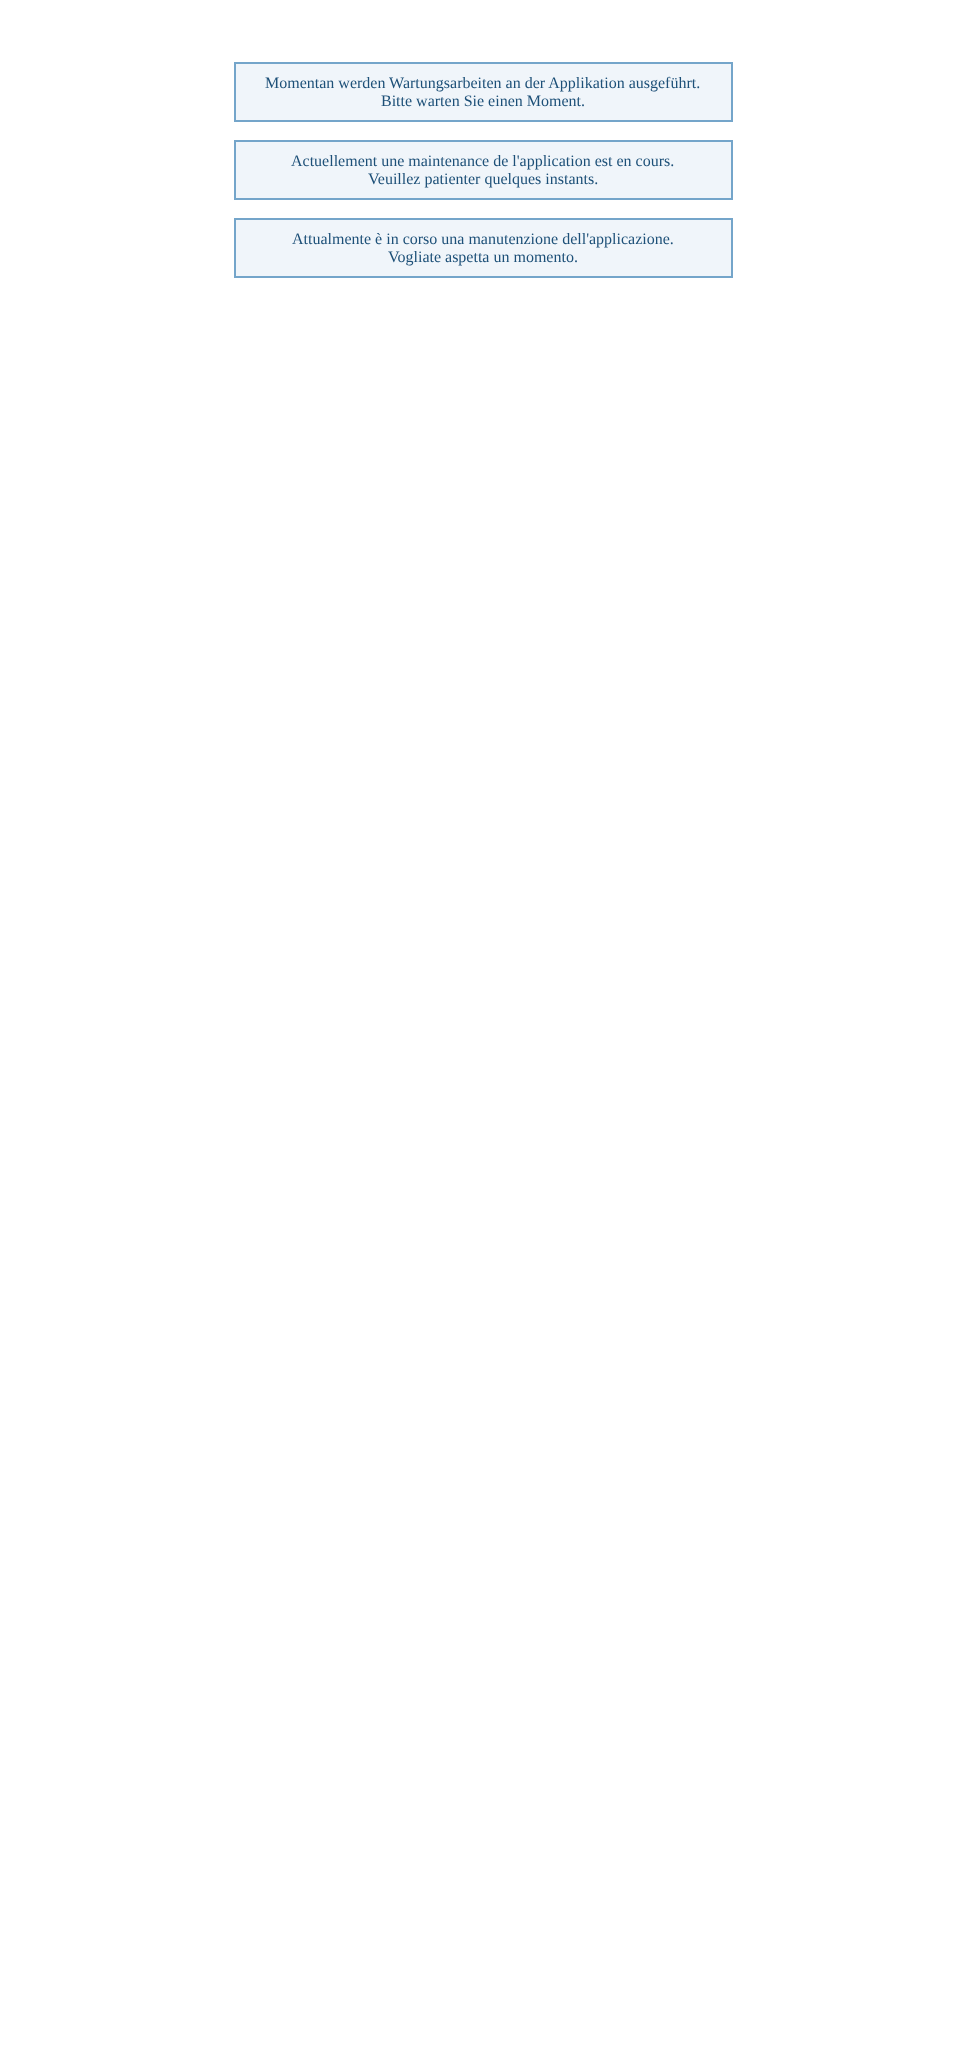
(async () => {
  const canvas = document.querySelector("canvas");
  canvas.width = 966;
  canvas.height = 2070;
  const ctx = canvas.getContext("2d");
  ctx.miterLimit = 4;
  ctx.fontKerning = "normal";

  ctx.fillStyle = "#ffffff";
  ctx.fillRect(0, 0, 966, 2070);
  ctx.fillStyle = "#f0f5fa";
  ctx.beginPath();
  ctx.rect(235, 63, 497, 58);
  ctx.fill();
  ctx.strokeStyle = "#74a5ca";
  ctx.lineWidth = 2;
  ctx.stroke();
  ctx.beginPath();
  ctx.rect(235, 141, 497, 58);
  ctx.fill();
  ctx.stroke();
  ctx.beginPath();
  ctx.rect(235, 219, 497, 58);
  ctx.fill();
  ctx.stroke();
  ctx.font = "16px Liberation Serif";
  ctx.fillStyle = "#1d5078";
  for (const [text, x, y] of [
    ["Momentan werden Wartungsarbeiten an der Applikation ausgeführt.", 265, 88],
    ["Bitte warten Sie einen Moment.", 381, 106],
    ["Actuellement une maintenance de l'application est en cours.", 291, 166],
    ["Veuillez patienter quelques instants.", 368, 184],
    ["Attualmente è in corso una manutenzione dell'applicazione.", 292, 244],
    ["Vogliate aspetta un momento.", 388, 262],
  ]) {
    ctx.fillText(text, x, y);
  }
})();
